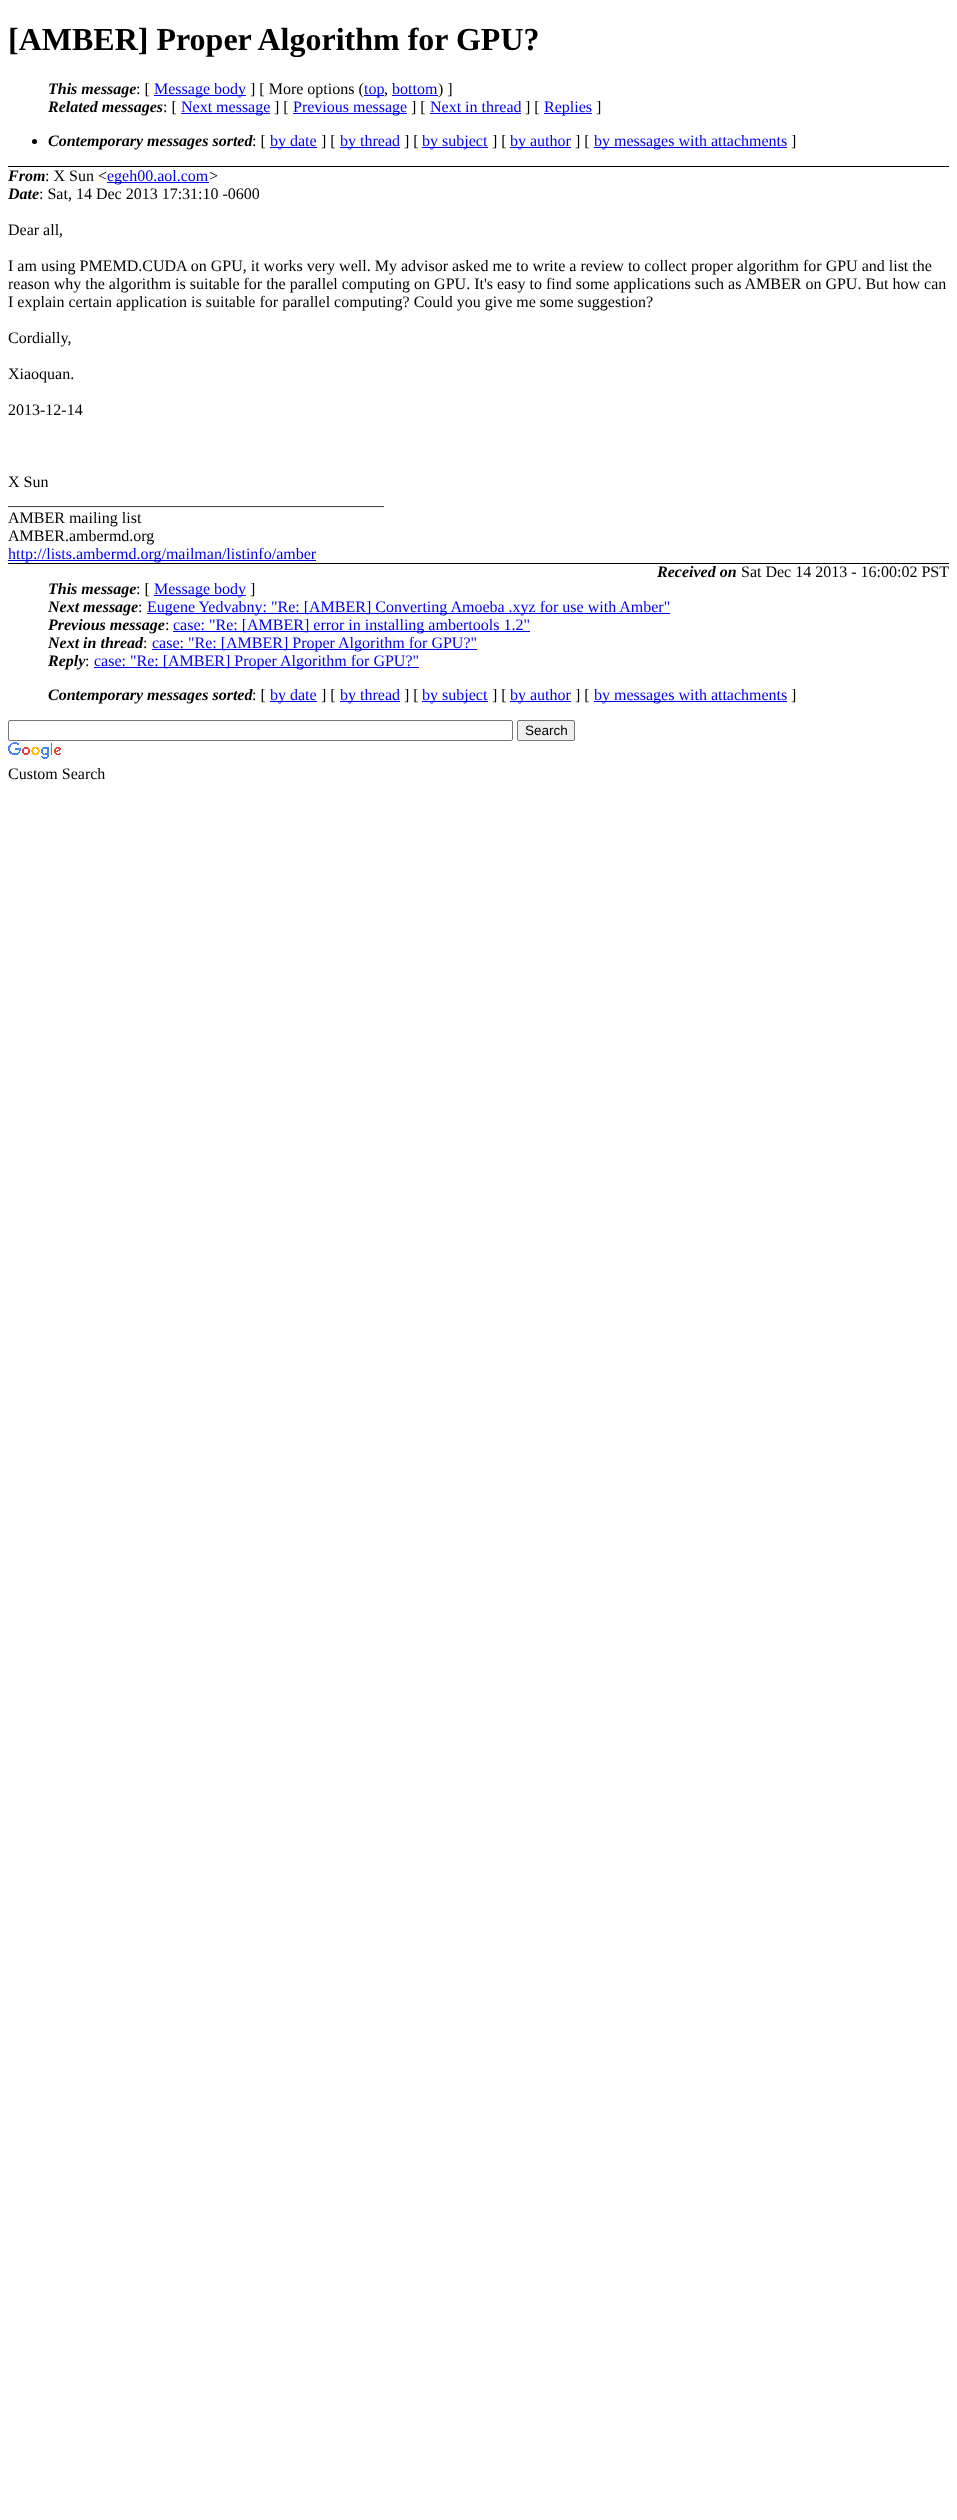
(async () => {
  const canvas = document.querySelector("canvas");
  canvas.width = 957;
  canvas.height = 2520;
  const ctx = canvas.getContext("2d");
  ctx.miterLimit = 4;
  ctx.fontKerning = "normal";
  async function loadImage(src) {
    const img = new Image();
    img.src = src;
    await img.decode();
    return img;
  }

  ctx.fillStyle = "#ffffff";
  ctx.fillRect(0, 0, 957, 2520);
  for (const [x, y, w, h, color] of [
    [8, 166, 941, 1, "#000000"],
    [154, 95, 92, 1, "#0000ee"],
    [364, 95, 20, 1, "#0000ee"],
    [392, 95, 46, 1, "#0000ee"],
    [181, 113, 89, 1, "#0000ee"],
    [293, 113, 114, 1, "#0000ee"],
    [430, 113, 91, 1, "#0000ee"],
    [544, 113, 48, 1, "#0000ee"],
  ]) {
    ctx.fillStyle = color;
    ctx.fillRect(x, y, w, h);
  }
  ctx.fillStyle = "#000000";
  ctx.beginPath();
  ctx.arc(34.5, 141.5, 2.5, 0, Math.PI * 2);
  ctx.fill();
  for (const [x, y, w, h, color] of [
    [270, 147, 47, 1, "#0000ee"],
    [340, 147, 60, 1, "#0000ee"],
    [422, 147, 66, 1, "#0000ee"],
    [510, 147, 61, 1, "#0000ee"],
    [594, 147, 193, 1, "#0000ee"],
    [107, 182, 102, 1, "#0000ee"],
    [8, 560, 308, 1, "#0000ee"],
    [8, 563, 941, 1, "#000000"],
    [154, 595, 92, 1, "#0000ee"],
    [147, 613, 523, 1, "#0000ee"],
    [173, 631, 357, 1, "#0000ee"],
    [152, 649, 325, 1, "#0000ee"],
    [94, 667, 325, 1, "#0000ee"],
    [270, 701, 47, 1, "#0000ee"],
    [340, 701, 60, 1, "#0000ee"],
    [422, 701, 66, 1, "#0000ee"],
    [510, 701, 61, 1, "#0000ee"],
    [594, 701, 193, 1, "#0000ee"],
  ]) {
    ctx.fillStyle = color;
    ctx.fillRect(x, y, w, h);
  }
  ctx.beginPath();
  ctx.roundRect(8.5, 720.5, 504, 20, 1.5);
  ctx.strokeStyle = "#767676";
  ctx.stroke();
  ctx.fillStyle = "#efefef";
  ctx.beginPath();
  ctx.roundRect(517.5, 720.5, 57, 20, 1.5);
  ctx.fill();
  ctx.stroke();
  ctx.drawImage(await loadImage("img/1.png"), 8, 742, 53, 17);
  ctx.font = "bold 32px Liberation Serif";
  ctx.fillStyle = "#000000";
  ctx.fillText("[AMBER] Proper Algorithm for GPU?", 8, 50);
  ctx.font = "italic bold 16px Liberation Serif";
  ctx.fillText("This message", 48, 94);
  ctx.font = "16px Liberation Serif";
  ctx.fillText(": [", 136, 94);
  ctx.fillStyle = "#0000ee";
  ctx.fillText("Message body", 154, 94);
  ctx.fillStyle = "#000000";
  ctx.fillText("] [ More options (", 250, 94);
  ctx.fillStyle = "#0000ee";
  ctx.fillText("top", 364, 94);
  ctx.fillStyle = "#000000";
  ctx.fillText(",", 384, 94);
  ctx.fillStyle = "#0000ee";
  ctx.fillText("bottom", 392, 94);
  ctx.fillStyle = "#000000";
  ctx.fillText(") ]", 438, 94);
  ctx.font = "italic bold 16px Liberation Serif";
  ctx.fillText("Related messages", 48, 112);
  ctx.font = "16px Liberation Serif";
  ctx.fillText(": [", 163, 112);
  ctx.fillStyle = "#0000ee";
  ctx.fillText("Next message", 181, 112);
  ctx.fillStyle = "#000000";
  ctx.fillText("] [", 274, 112);
  ctx.fillStyle = "#0000ee";
  ctx.fillText("Previous message", 293, 112);
  ctx.fillStyle = "#000000";
  ctx.fillText("] [", 411, 112);
  ctx.fillStyle = "#0000ee";
  ctx.fillText("Next in thread", 430, 112);
  ctx.fillStyle = "#000000";
  ctx.fillText("] [", 525, 112);
  ctx.fillStyle = "#0000ee";
  ctx.fillText("Replies", 544, 112);
  ctx.fillStyle = "#000000";
  ctx.fillText("]", 596, 112);
  ctx.font = "italic bold 16px Liberation Serif";
  ctx.fillText("Contemporary messages sorted", 48, 146);
  ctx.font = "16px Liberation Serif";
  ctx.fillText(": [", 252, 146);
  ctx.fillStyle = "#0000ee";
  ctx.fillText("by date", 270, 146);
  ctx.fillStyle = "#000000";
  ctx.fillText("] [", 321, 146);
  ctx.fillStyle = "#0000ee";
  ctx.fillText("by thread", 340, 146);
  ctx.fillStyle = "#000000";
  ctx.fillText("] [", 404, 146);
  ctx.fillStyle = "#0000ee";
  ctx.fillText("by subject", 422, 146);
  ctx.fillStyle = "#000000";
  ctx.fillText("] [", 492, 146);
  ctx.fillStyle = "#0000ee";
  ctx.fillText("by author", 510, 146);
  ctx.fillStyle = "#000000";
  ctx.fillText("] [", 575, 146);
  ctx.fillStyle = "#0000ee";
  ctx.fillText("by messages with attachments", 594, 146);
  ctx.fillStyle = "#000000";
  ctx.fillText("]", 791, 146);
  ctx.font = "italic bold 16px Liberation Serif";
  ctx.fillText("From", 8, 181);
  ctx.font = "16px Liberation Serif";
  ctx.fillText(": X Sun <", 45, 181);
  ctx.fillStyle = "#0000ee";
  ctx.fillText("egeh00.aol.com", 107, 181);
  ctx.fillStyle = "#000000";
  ctx.fillText(">", 209, 181);
  ctx.font = "italic bold 16px Liberation Serif";
  ctx.fillText("Date", 8, 199);
  ctx.font = "16px Liberation Serif";
  for (const [text, x, y] of [
    [": Sat, 14 Dec 2013 17:31:10 -0600", 39, 199],
    ["Dear all,", 8, 235],
    ["I am using PMEMD.CUDA on GPU, it works very well. My advisor asked me to write a review to collect proper algorithm for GPU and list the", 8, 271],
    ["reason why the algorithm is suitable for the parallel computing on GPU. It's easy to find some applications such as AMBER on GPU. But how can", 8, 289],
    ["I explain certain application is suitable for parallel computing? Could you give me some suggestion?", 8, 307],
    ["Cordially,", 8, 343],
    ["Xiaoquan.", 8, 379],
    ["2013-12-14", 8, 415],
    ["X Sun", 8, 487],
    ["_______________________________________________", 8, 505],
    ["AMBER mailing list", 8, 523],
    ["AMBER.ambermd.org", 8, 541],
  ]) {
    ctx.fillText(text, x, y);
  }
  ctx.fillStyle = "#0000ee";
  ctx.fillText("http://lists.ambermd.org/mailman/listinfo/amber", 8, 559);
  ctx.font = "italic bold 16px Liberation Serif";
  ctx.fillStyle = "#000000";
  ctx.fillText("Received on", 657, 577);
  ctx.font = "16px Liberation Serif";
  ctx.fillText("Sat Dec 14 2013 - 16:00:02 PST", 741, 577);
  ctx.font = "italic bold 16px Liberation Serif";
  ctx.fillText("This message", 48, 594);
  ctx.font = "16px Liberation Serif";
  ctx.fillText(": [", 136, 594);
  ctx.fillStyle = "#0000ee";
  ctx.fillText("Message body", 154, 594);
  ctx.fillStyle = "#000000";
  ctx.fillText("]", 250, 594);
  ctx.font = "italic bold 16px Liberation Serif";
  ctx.fillText("Next message", 48, 612);
  ctx.font = "16px Liberation Serif";
  ctx.fillText(":", 138, 612);
  ctx.fillStyle = "#0000ee";
  ctx.fillText("Eugene Yedvabny: \"Re: [AMBER] Converting Amoeba .xyz for use with Amber\"", 147, 612);
  ctx.font = "italic bold 16px Liberation Serif";
  ctx.fillStyle = "#000000";
  ctx.fillText("Previous message", 48, 630);
  ctx.font = "16px Liberation Serif";
  ctx.fillText(":", 165, 630);
  ctx.fillStyle = "#0000ee";
  ctx.fillText("case: \"Re: [AMBER] error in installing ambertools 1.2\"", 173, 630);
  ctx.font = "italic bold 16px Liberation Serif";
  ctx.fillStyle = "#000000";
  ctx.fillText("Next in thread", 48, 648);
  ctx.font = "16px Liberation Serif";
  ctx.fillText(":", 143, 648);
  ctx.fillStyle = "#0000ee";
  ctx.fillText("case: \"Re: [AMBER] Proper Algorithm for GPU?\"", 152, 648);
  ctx.font = "italic bold 16px Liberation Serif";
  ctx.fillStyle = "#000000";
  ctx.fillText("Reply", 48, 666);
  ctx.font = "16px Liberation Serif";
  ctx.fillText(":", 85, 666);
  ctx.fillStyle = "#0000ee";
  ctx.fillText("case: \"Re: [AMBER] Proper Algorithm for GPU?\"", 94, 666);
  ctx.font = "italic bold 16px Liberation Serif";
  ctx.fillStyle = "#000000";
  ctx.fillText("Contemporary messages sorted", 48, 700);
  ctx.font = "16px Liberation Serif";
  ctx.fillText(": [", 252, 700);
  ctx.fillStyle = "#0000ee";
  ctx.fillText("by date", 270, 700);
  ctx.fillStyle = "#000000";
  ctx.fillText("] [", 321, 700);
  ctx.fillStyle = "#0000ee";
  ctx.fillText("by thread", 340, 700);
  ctx.fillStyle = "#000000";
  ctx.fillText("] [", 404, 700);
  ctx.fillStyle = "#0000ee";
  ctx.fillText("by subject", 422, 700);
  ctx.fillStyle = "#000000";
  ctx.fillText("] [", 492, 700);
  ctx.fillStyle = "#0000ee";
  ctx.fillText("by author", 510, 700);
  ctx.fillStyle = "#000000";
  ctx.fillText("] [", 575, 700);
  ctx.fillStyle = "#0000ee";
  ctx.fillText("by messages with attachments", 594, 700);
  ctx.fillStyle = "#000000";
  ctx.fillText("]", 791, 700);
  ctx.font = "13.5px Liberation Sans";
  ctx.fillText("Search", 525, 735);
  ctx.font = "16px Liberation Serif";
  ctx.fillText("Custom Search", 8, 779);
})();
